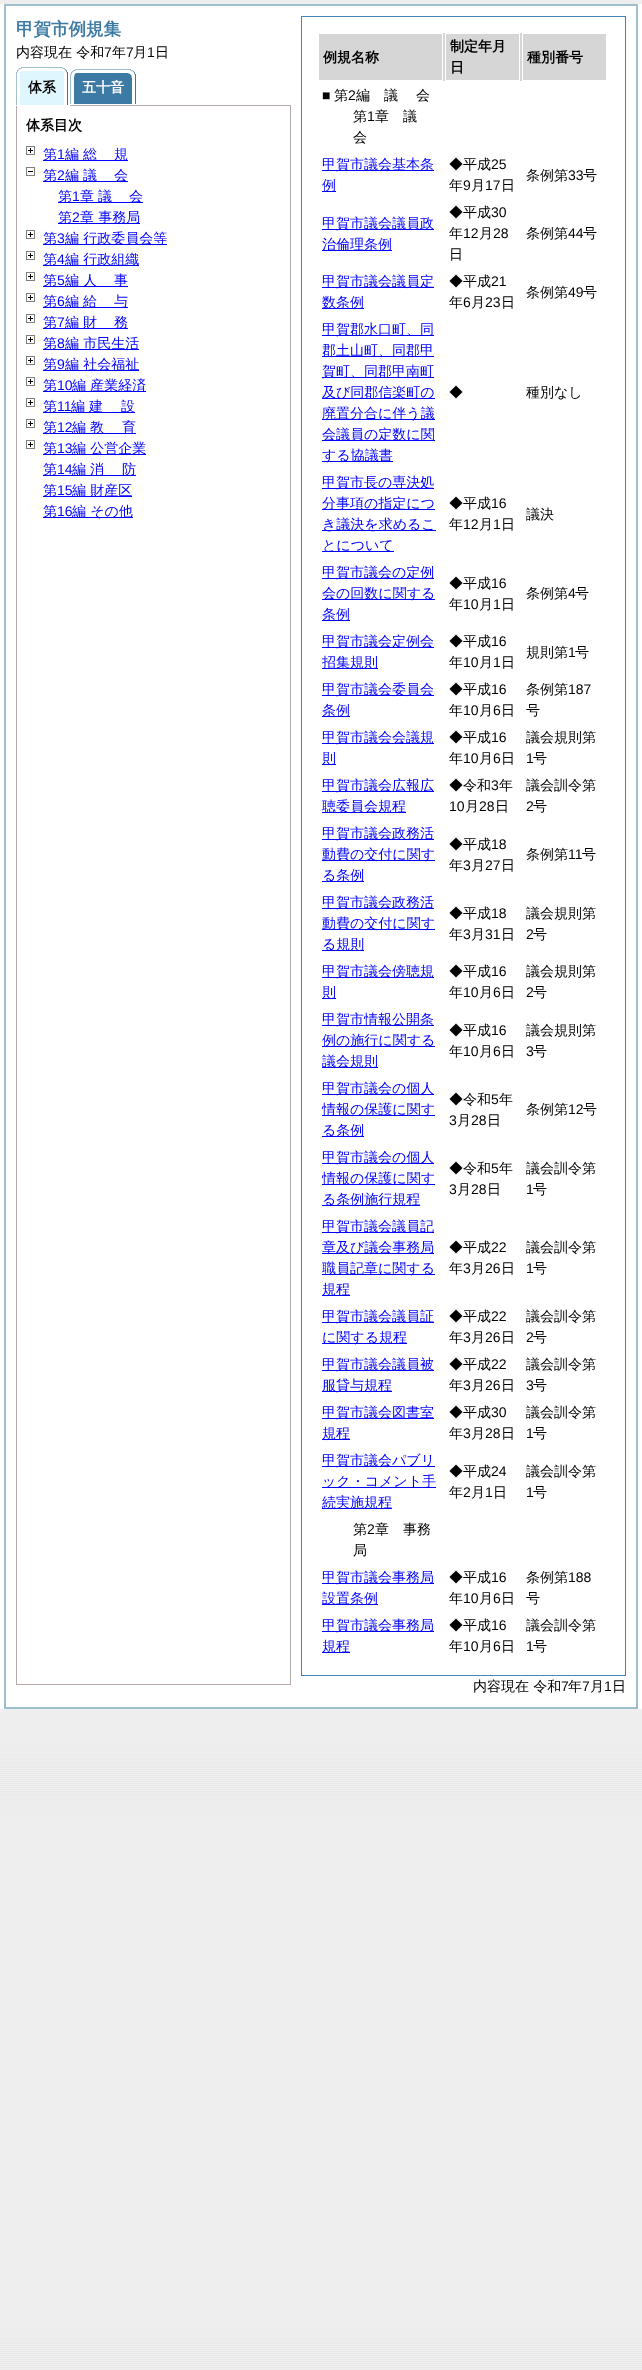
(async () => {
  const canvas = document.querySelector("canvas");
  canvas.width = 642;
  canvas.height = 2370;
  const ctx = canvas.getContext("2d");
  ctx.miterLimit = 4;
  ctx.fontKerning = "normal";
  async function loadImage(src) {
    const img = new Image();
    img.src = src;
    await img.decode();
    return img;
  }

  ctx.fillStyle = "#ffffff";
  ctx.fillRect(0, 0, 642, 2370);
  ctx.drawImage(await loadImage("img/1.png"), 0, 0, 642, 2370);
  ctx.fillRect(0, 4, 642, 1705);
  ctx.strokeStyle = "#a0bfcc";
  ctx.lineWidth = 2;
  ctx.strokeRect(5, 5, 632, 1703);
  ctx.strokeStyle = "#b5aba9";
  ctx.lineWidth = 1;
  ctx.strokeRect(16.5, 105.5, 274, 1579);
  ctx.fillRect(16, 105, 54, 1);
  ctx.drawImage(await loadImage("img/2.png"), 16, 67, 6, 38);
  ctx.drawImage(await loadImage("img/3.png"), 22, 67, 46, 38);
  ctx.drawImage(await loadImage("img/4.png"), 70, 67, 6, 37);
  ctx.drawImage(await loadImage("img/5.png"), 76, 67, 60, 37);
  ctx.drawImage(await loadImage("img/6.png"), 26, 146, 9, 9);
  ctx.fillStyle = "#0000ff";
  ctx.fillRect(43, 160, 85, 1);
  ctx.drawImage(await loadImage("img/7.png"), 26, 167, 9, 9);
  for (const [x, y, w, h, color] of [
    [43, 181, 85, 1, "#0000ff"],
    [58, 202, 85, 1, "#0000ff"],
    [58, 223, 82, 1, "#0000ff"],
  ]) {
    ctx.fillStyle = color;
    ctx.fillRect(x, y, w, h);
  }
  ctx.drawImage(await loadImage("img/6.png"), 26, 230, 9, 9);
  ctx.fillRect(43, 244, 124, 1);
  ctx.drawImage(await loadImage("img/6.png"), 26, 251, 9, 9);
  ctx.fillRect(43, 265, 96, 1);
  ctx.drawImage(await loadImage("img/6.png"), 26, 272, 9, 9);
  ctx.fillRect(43, 286, 85, 1);
  ctx.drawImage(await loadImage("img/6.png"), 26, 293, 9, 9);
  ctx.fillRect(43, 307, 85, 1);
  ctx.drawImage(await loadImage("img/6.png"), 26, 314, 9, 9);
  ctx.fillRect(43, 328, 85, 1);
  ctx.drawImage(await loadImage("img/6.png"), 26, 335, 9, 9);
  ctx.fillRect(43, 349, 96, 1);
  ctx.drawImage(await loadImage("img/6.png"), 26, 356, 9, 9);
  ctx.fillRect(43, 370, 96, 1);
  ctx.drawImage(await loadImage("img/6.png"), 26, 377, 9, 9);
  ctx.fillRect(43, 391, 103, 1);
  ctx.drawImage(await loadImage("img/6.png"), 26, 398, 9, 9);
  ctx.fillRect(43, 412, 92, 1);
  ctx.drawImage(await loadImage("img/6.png"), 26, 419, 9, 9);
  ctx.fillRect(43, 433, 93, 1);
  ctx.drawImage(await loadImage("img/6.png"), 26, 440, 9, 9);
  for (const [x, y, w, h, color] of [
    [43, 454, 103, 1, "#0000ff"],
    [43, 475, 93, 1, "#0000ff"],
    [43, 496, 89, 1, "#0000ff"],
    [43, 517, 90, 1, "#0000ff"],
  ]) {
    ctx.fillStyle = color;
    ctx.fillRect(x, y, w, h);
  }
  ctx.strokeStyle = "#4682b4";
  ctx.strokeRect(301.5, 16.5, 324, 1659);
  ctx.fillStyle = "#d6d6d6";
  ctx.fillRect(319, 33, 287, 48);
  ctx.strokeStyle = "#ffffff";
  ctx.strokeRect(318.5, 33.5, 124, 47);
  ctx.strokeRect(445.5, 33.5, 74, 47);
  ctx.strokeRect(522.5, 33.5, 84, 47);
  for (const [x, y, w, h, color] of [
    [322, 170, 112, 1, "#0000ff"],
    [322, 191, 14, 1, "#0000ff"],
    [322, 229, 112, 1, "#0000ff"],
    [322, 250, 70, 1, "#0000ff"],
    [322, 287, 112, 1, "#0000ff"],
    [322, 308, 42, 1, "#0000ff"],
    [322, 335, 112, 1, "#0000ff"],
    [322, 356, 112, 1, "#0000ff"],
    [322, 377, 112, 1, "#0000ff"],
    [322, 398, 113, 1, "#0000ff"],
    [322, 419, 113, 1, "#0000ff"],
    [322, 440, 113, 1, "#0000ff"],
    [322, 461, 71, 1, "#0000ff"],
    [322, 488, 112, 1, "#0000ff"],
    [322, 509, 113, 1, "#0000ff"],
    [322, 530, 114, 1, "#0000ff"],
    [322, 551, 72, 1, "#0000ff"],
    [322, 578, 112, 1, "#0000ff"],
    [322, 599, 113, 1, "#0000ff"],
    [322, 620, 28, 1, "#0000ff"],
    [322, 647, 112, 1, "#0000ff"],
    [322, 668, 56, 1, "#0000ff"],
    [322, 695, 112, 1, "#0000ff"],
    [322, 716, 28, 1, "#0000ff"],
    [322, 743, 112, 1, "#0000ff"],
    [322, 764, 14, 1, "#0000ff"],
    [322, 791, 112, 1, "#0000ff"],
    [322, 812, 84, 1, "#0000ff"],
    [322, 839, 112, 1, "#0000ff"],
    [322, 860, 113, 1, "#0000ff"],
    [322, 881, 42, 1, "#0000ff"],
    [322, 908, 112, 1, "#0000ff"],
    [322, 929, 113, 1, "#0000ff"],
    [322, 950, 42, 1, "#0000ff"],
    [322, 977, 112, 1, "#0000ff"],
    [322, 998, 14, 1, "#0000ff"],
    [322, 1025, 112, 1, "#0000ff"],
    [322, 1046, 113, 1, "#0000ff"],
    [322, 1067, 56, 1, "#0000ff"],
    [322, 1094, 112, 1, "#0000ff"],
    [322, 1115, 113, 1, "#0000ff"],
    [322, 1136, 42, 1, "#0000ff"],
    [322, 1163, 112, 1, "#0000ff"],
    [322, 1184, 113, 1, "#0000ff"],
    [322, 1205, 98, 1, "#0000ff"],
    [322, 1232, 112, 1, "#0000ff"],
    [322, 1253, 112, 1, "#0000ff"],
    [322, 1274, 113, 1, "#0000ff"],
    [322, 1295, 28, 1, "#0000ff"],
    [322, 1322, 112, 1, "#0000ff"],
    [322, 1343, 85, 1, "#0000ff"],
    [322, 1370, 112, 1, "#0000ff"],
    [322, 1391, 70, 1, "#0000ff"],
    [322, 1418, 112, 1, "#0000ff"],
    [322, 1439, 28, 1, "#0000ff"],
    [322, 1466, 113, 1, "#0000ff"],
    [322, 1487, 114, 1, "#0000ff"],
    [322, 1508, 70, 1, "#0000ff"],
    [322, 1583, 112, 1, "#0000ff"],
    [322, 1604, 56, 1, "#0000ff"],
    [322, 1631, 112, 1, "#0000ff"],
    [322, 1652, 28, 1, "#0000ff"],
  ]) {
    ctx.fillStyle = color;
    ctx.fillRect(x, y, w, h);
  }
  ctx.font = "bold 17.5px WenQuanYi Zen Hei";
  ctx.fillStyle = "#3d7aa4";
  ctx.fillText("甲賀市例規集", 16, 35);
  ctx.font = "500 14px WenQuanYi Zen Hei";
  ctx.fillStyle = "#000000";
  ctx.fillText("内容現在 令和", 16, 57);
  ctx.font = "14px Liberation Sans";
  ctx.fillText("7", 104, 57);
  ctx.font = "500 14px WenQuanYi Zen Hei";
  ctx.fillText("年", 112, 57);
  ctx.font = "14px Liberation Sans";
  ctx.fillText("7", 126, 57);
  ctx.font = "500 14px WenQuanYi Zen Hei";
  ctx.fillText("月", 133, 57);
  ctx.font = "14px Liberation Sans";
  ctx.fillText("1", 147, 57);
  ctx.font = "500 14px WenQuanYi Zen Hei";
  ctx.fillText("日", 155, 57);
  ctx.font = "bold 14px WenQuanYi Zen Hei";
  ctx.fillText("体系", 28, 92);
  ctx.fillStyle = "#ffffff";
  ctx.fillText("五十音", 82, 92);
  ctx.fillStyle = "#000000";
  ctx.fillText("体系目次", 26, 130);
  ctx.font = "500 14px WenQuanYi Zen Hei";
  ctx.fillStyle = "#0000ff";
  ctx.fillText("第", 43, 159);
  ctx.font = "14px Liberation Sans";
  ctx.fillText("1", 57, 159);
  ctx.font = "500 14px WenQuanYi Zen Hei";
  ctx.fillText("編", 65, 159);
  ctx.letterSpacing = "18px";
  ctx.fillText("総", 83, 159);
  ctx.letterSpacing = "0px";
  ctx.fillText("規", 114, 159);
  ctx.fillText("第", 43, 180);
  ctx.font = "14px Liberation Sans";
  ctx.fillText("2", 57, 180);
  ctx.font = "500 14px WenQuanYi Zen Hei";
  ctx.fillText("編", 65, 180);
  ctx.letterSpacing = "18px";
  ctx.fillText("議", 83, 180);
  ctx.letterSpacing = "0px";
  ctx.fillText("会", 114, 180);
  ctx.fillText("第", 58, 201);
  ctx.font = "14px Liberation Sans";
  ctx.fillText("1", 72, 201);
  ctx.font = "500 14px WenQuanYi Zen Hei";
  ctx.fillText("章", 80, 201);
  ctx.letterSpacing = "18px";
  ctx.fillText("議", 98, 201);
  ctx.letterSpacing = "0px";
  ctx.fillText("会", 129, 201);
  ctx.fillText("第", 58, 222);
  ctx.font = "14px Liberation Sans";
  ctx.fillText("2", 72, 222);
  ctx.font = "500 14px WenQuanYi Zen Hei";
  ctx.fillText("章 事務局", 80, 222);
  ctx.fillText("第", 43, 243);
  ctx.font = "14px Liberation Sans";
  ctx.fillText("3", 57, 243);
  ctx.font = "500 14px WenQuanYi Zen Hei";
  ctx.fillText("編 行政委員会等", 65, 243);
  ctx.fillText("第", 43, 264);
  ctx.font = "14px Liberation Sans";
  ctx.fillText("4", 57, 264);
  ctx.font = "500 14px WenQuanYi Zen Hei";
  ctx.fillText("編 行政組織", 65, 264);
  ctx.fillText("第", 43, 285);
  ctx.font = "14px Liberation Sans";
  ctx.fillText("5", 57, 285);
  ctx.font = "500 14px WenQuanYi Zen Hei";
  ctx.fillText("編", 65, 285);
  ctx.letterSpacing = "18px";
  ctx.fillText("人", 83, 285);
  ctx.letterSpacing = "0px";
  ctx.fillText("事", 114, 285);
  ctx.fillText("第", 43, 306);
  ctx.font = "14px Liberation Sans";
  ctx.fillText("6", 57, 306);
  ctx.font = "500 14px WenQuanYi Zen Hei";
  ctx.fillText("編", 65, 306);
  ctx.letterSpacing = "18px";
  ctx.fillText("給", 83, 306);
  ctx.letterSpacing = "0px";
  ctx.fillText("与", 114, 306);
  ctx.fillText("第", 43, 327);
  ctx.font = "14px Liberation Sans";
  ctx.fillText("7", 57, 327);
  ctx.font = "500 14px WenQuanYi Zen Hei";
  ctx.fillText("編", 65, 327);
  ctx.letterSpacing = "18px";
  ctx.fillText("財", 83, 327);
  ctx.letterSpacing = "0px";
  ctx.fillText("務", 114, 327);
  ctx.fillText("第", 43, 348);
  ctx.font = "14px Liberation Sans";
  ctx.fillText("8", 57, 348);
  ctx.font = "500 14px WenQuanYi Zen Hei";
  ctx.fillText("編 市民生活", 65, 348);
  ctx.fillText("第", 43, 369);
  ctx.font = "14px Liberation Sans";
  ctx.fillText("9", 57, 369);
  ctx.font = "500 14px WenQuanYi Zen Hei";
  ctx.fillText("編 社会福祉", 65, 369);
  ctx.fillText("第", 43, 390);
  ctx.font = "14px Liberation Sans";
  ctx.fillText("10", 57, 390);
  ctx.font = "500 14px WenQuanYi Zen Hei";
  ctx.fillText("編 産業経済", 72, 390);
  ctx.fillText("第", 43, 411);
  ctx.font = "14px Liberation Sans";
  ctx.fillText("11", 57, 411);
  ctx.font = "500 14px WenQuanYi Zen Hei";
  ctx.fillText("編", 71, 411);
  ctx.letterSpacing = "18px";
  ctx.fillText("建", 89, 411);
  ctx.letterSpacing = "0px";
  ctx.fillText("設", 121, 411);
  ctx.fillText("第", 43, 432);
  ctx.font = "14px Liberation Sans";
  ctx.fillText("12", 57, 432);
  ctx.font = "500 14px WenQuanYi Zen Hei";
  ctx.fillText("編", 72, 432);
  ctx.letterSpacing = "18px";
  ctx.fillText("教", 90, 432);
  ctx.letterSpacing = "0px";
  ctx.fillText("育", 122, 432);
  ctx.fillText("第", 43, 453);
  ctx.font = "14px Liberation Sans";
  ctx.fillText("13", 57, 453);
  ctx.font = "500 14px WenQuanYi Zen Hei";
  ctx.fillText("編 公営企業", 72, 453);
  ctx.fillText("第", 43, 474);
  ctx.font = "14px Liberation Sans";
  ctx.fillText("14", 57, 474);
  ctx.font = "500 14px WenQuanYi Zen Hei";
  ctx.fillText("編", 72, 474);
  ctx.letterSpacing = "18px";
  ctx.fillText("消", 90, 474);
  ctx.letterSpacing = "0px";
  ctx.fillText("防", 122, 474);
  ctx.fillText("第", 43, 495);
  ctx.font = "14px Liberation Sans";
  ctx.fillText("15", 57, 495);
  ctx.font = "500 14px WenQuanYi Zen Hei";
  ctx.fillText("編 財産区", 72, 495);
  ctx.fillText("第", 43, 516);
  ctx.font = "14px Liberation Sans";
  ctx.fillText("16", 57, 516);
  ctx.font = "500 14px WenQuanYi Zen Hei";
  ctx.fillText("編 その他", 72, 516);
  ctx.font = "bold 14px WenQuanYi Zen Hei";
  ctx.fillStyle = "#000000";
  for (const [text, x, y] of [
    ["例規名称", 323, 62],
    ["制定年月", 450, 51],
    ["日", 450, 72],
    ["種別番号", 527, 62],
  ]) {
    ctx.fillText(text, x, y);
  }
  ctx.font = "14px Liberation Sans";
  ctx.fillText("■", 322, 100);
  ctx.font = "500 14px WenQuanYi Zen Hei";
  ctx.fillText("第", 334, 100);
  ctx.font = "14px Liberation Sans";
  ctx.fillText("2", 348, 100);
  ctx.font = "500 14px WenQuanYi Zen Hei";
  ctx.fillText("編", 356, 100);
  ctx.letterSpacing = "18px";
  ctx.fillText("議", 384, 100);
  ctx.letterSpacing = "0px";
  ctx.fillText("会", 416, 100);
  ctx.fillText("第", 353, 121);
  ctx.font = "14px Liberation Sans";
  ctx.fillText("1", 367, 121);
  ctx.font = "500 14px WenQuanYi Zen Hei";
  ctx.fillText("章", 375, 121);
  ctx.letterSpacing = "18px";
  ctx.fillText("議", 403, 121);
  ctx.letterSpacing = "0px";
  ctx.fillText("会", 353, 142);
  ctx.fillStyle = "#0000ff";
  ctx.fillText("甲賀市議会基本条", 322, 169);
  ctx.fillText("例", 322, 190);
  ctx.fillStyle = "#000000";
  ctx.fillText("◆平成", 449, 169);
  ctx.font = "14px Liberation Sans";
  ctx.fillText("25", 491, 169);
  ctx.font = "500 14px WenQuanYi Zen Hei";
  ctx.fillText("年", 449, 190);
  ctx.font = "14px Liberation Sans";
  ctx.fillText("9", 463, 190);
  ctx.font = "500 14px WenQuanYi Zen Hei";
  ctx.fillText("月", 471, 190);
  ctx.font = "14px Liberation Sans";
  ctx.fillText("17", 485, 190);
  ctx.font = "500 14px WenQuanYi Zen Hei";
  ctx.fillText("日", 501, 190);
  ctx.fillText("条例第", 526, 180);
  ctx.font = "14px Liberation Sans";
  ctx.fillText("33", 568, 180);
  ctx.font = "500 14px WenQuanYi Zen Hei";
  ctx.fillText("号", 583, 180);
  ctx.fillStyle = "#0000ff";
  ctx.fillText("甲賀市議会議員政", 322, 228);
  ctx.fillText("治倫理条例", 322, 249);
  ctx.fillStyle = "#000000";
  ctx.fillText("◆平成", 449, 217);
  ctx.font = "14px Liberation Sans";
  ctx.fillText("30", 491, 217);
  ctx.font = "500 14px WenQuanYi Zen Hei";
  ctx.fillText("年", 449, 238);
  ctx.font = "14px Liberation Sans";
  ctx.fillText("12", 463, 238);
  ctx.font = "500 14px WenQuanYi Zen Hei";
  ctx.fillText("月", 479, 238);
  ctx.font = "14px Liberation Sans";
  ctx.fillText("28", 493, 238);
  ctx.font = "500 14px WenQuanYi Zen Hei";
  ctx.fillText("日", 449, 259);
  ctx.fillText("条例第", 526, 238);
  ctx.font = "14px Liberation Sans";
  ctx.fillText("44", 568, 238);
  ctx.font = "500 14px WenQuanYi Zen Hei";
  ctx.fillText("号", 583, 238);
  ctx.fillStyle = "#0000ff";
  ctx.fillText("甲賀市議会議員定", 322, 286);
  ctx.fillText("数条例", 322, 307);
  ctx.fillStyle = "#000000";
  ctx.fillText("◆平成", 449, 286);
  ctx.font = "14px Liberation Sans";
  ctx.fillText("21", 491, 286);
  ctx.font = "500 14px WenQuanYi Zen Hei";
  ctx.fillText("年", 449, 307);
  ctx.font = "14px Liberation Sans";
  ctx.fillText("6", 463, 307);
  ctx.font = "500 14px WenQuanYi Zen Hei";
  ctx.fillText("月", 471, 307);
  ctx.font = "14px Liberation Sans";
  ctx.fillText("23", 485, 307);
  ctx.font = "500 14px WenQuanYi Zen Hei";
  ctx.fillText("日", 501, 307);
  ctx.fillText("条例第", 526, 297);
  ctx.font = "14px Liberation Sans";
  ctx.fillText("49", 568, 297);
  ctx.font = "500 14px WenQuanYi Zen Hei";
  ctx.fillText("号", 583, 297);
  ctx.fillStyle = "#0000ff";
  for (const [text, x, y] of [
    ["甲賀郡水口町、同", 322, 334],
    ["郡土山町、同郡甲", 322, 355],
    ["賀町、同郡甲南町", 322, 376],
    ["及び同郡信楽町の", 322, 397],
    ["廃置分合に伴う議", 322, 418],
    ["会議員の定数に関", 322, 439],
    ["する協議書", 322, 460],
  ]) {
    ctx.fillText(text, x, y);
  }
  ctx.fillStyle = "#000000";
  ctx.fillText("◆", 449, 397);
  ctx.fillText("種別なし", 526, 397);
  ctx.fillStyle = "#0000ff";
  for (const [text, x, y] of [
    ["甲賀市長の専決処", 322, 487],
    ["分事項の指定につ", 322, 508],
    ["き議決を求めるこ", 322, 529],
    ["とについて", 322, 550],
  ]) {
    ctx.fillText(text, x, y);
  }
  ctx.fillStyle = "#000000";
  ctx.fillText("◆平成", 449, 508);
  ctx.font = "14px Liberation Sans";
  ctx.fillText("16", 491, 508);
  ctx.font = "500 14px WenQuanYi Zen Hei";
  ctx.fillText("年", 449, 529);
  ctx.font = "14px Liberation Sans";
  ctx.fillText("12", 463, 529);
  ctx.font = "500 14px WenQuanYi Zen Hei";
  ctx.fillText("月", 479, 529);
  ctx.font = "14px Liberation Sans";
  ctx.fillText("1", 493, 529);
  ctx.font = "500 14px WenQuanYi Zen Hei";
  ctx.fillText("日", 501, 529);
  ctx.fillText("議決", 526, 519);
  ctx.fillStyle = "#0000ff";
  for (const [text, x, y] of [
    ["甲賀市議会の定例", 322, 577],
    ["会の回数に関する", 322, 598],
    ["条例", 322, 619],
  ]) {
    ctx.fillText(text, x, y);
  }
  ctx.fillStyle = "#000000";
  ctx.fillText("◆平成", 449, 588);
  ctx.font = "14px Liberation Sans";
  ctx.fillText("16", 491, 588);
  ctx.font = "500 14px WenQuanYi Zen Hei";
  ctx.fillText("年", 449, 609);
  ctx.font = "14px Liberation Sans";
  ctx.fillText("10", 463, 609);
  ctx.font = "500 14px WenQuanYi Zen Hei";
  ctx.fillText("月", 479, 609);
  ctx.font = "14px Liberation Sans";
  ctx.fillText("1", 493, 609);
  ctx.font = "500 14px WenQuanYi Zen Hei";
  ctx.fillText("日", 501, 609);
  ctx.fillText("条例第", 526, 598);
  ctx.font = "14px Liberation Sans";
  ctx.fillText("4", 568, 598);
  ctx.font = "500 14px WenQuanYi Zen Hei";
  ctx.fillText("号", 575, 598);
  ctx.fillStyle = "#0000ff";
  ctx.fillText("甲賀市議会定例会", 322, 646);
  ctx.fillText("招集規則", 322, 667);
  ctx.fillStyle = "#000000";
  ctx.fillText("◆平成", 449, 646);
  ctx.font = "14px Liberation Sans";
  ctx.fillText("16", 491, 646);
  ctx.font = "500 14px WenQuanYi Zen Hei";
  ctx.fillText("年", 449, 667);
  ctx.font = "14px Liberation Sans";
  ctx.fillText("10", 463, 667);
  ctx.font = "500 14px WenQuanYi Zen Hei";
  ctx.fillText("月", 479, 667);
  ctx.font = "14px Liberation Sans";
  ctx.fillText("1", 493, 667);
  ctx.font = "500 14px WenQuanYi Zen Hei";
  ctx.fillText("日", 501, 667);
  ctx.fillText("規則第", 526, 657);
  ctx.font = "14px Liberation Sans";
  ctx.fillText("1", 568, 657);
  ctx.font = "500 14px WenQuanYi Zen Hei";
  ctx.fillText("号", 575, 657);
  ctx.fillStyle = "#0000ff";
  ctx.fillText("甲賀市議会委員会", 322, 694);
  ctx.fillText("条例", 322, 715);
  ctx.fillStyle = "#000000";
  ctx.fillText("◆平成", 449, 694);
  ctx.font = "14px Liberation Sans";
  ctx.fillText("16", 491, 694);
  ctx.font = "500 14px WenQuanYi Zen Hei";
  ctx.fillText("年", 449, 715);
  ctx.font = "14px Liberation Sans";
  ctx.fillText("10", 463, 715);
  ctx.font = "500 14px WenQuanYi Zen Hei";
  ctx.fillText("月", 479, 715);
  ctx.font = "14px Liberation Sans";
  ctx.fillText("6", 493, 715);
  ctx.font = "500 14px WenQuanYi Zen Hei";
  ctx.fillText("日", 501, 715);
  ctx.fillText("条例第", 526, 694);
  ctx.font = "14px Liberation Sans";
  ctx.fillText("187", 568, 694);
  ctx.font = "500 14px WenQuanYi Zen Hei";
  ctx.fillText("号", 526, 715);
  ctx.fillStyle = "#0000ff";
  ctx.fillText("甲賀市議会会議規", 322, 742);
  ctx.fillText("則", 322, 763);
  ctx.fillStyle = "#000000";
  ctx.fillText("◆平成", 449, 742);
  ctx.font = "14px Liberation Sans";
  ctx.fillText("16", 491, 742);
  ctx.font = "500 14px WenQuanYi Zen Hei";
  ctx.fillText("年", 449, 763);
  ctx.font = "14px Liberation Sans";
  ctx.fillText("10", 463, 763);
  ctx.font = "500 14px WenQuanYi Zen Hei";
  ctx.fillText("月", 479, 763);
  ctx.font = "14px Liberation Sans";
  ctx.fillText("6", 493, 763);
  ctx.font = "500 14px WenQuanYi Zen Hei";
  ctx.fillText("日", 501, 763);
  ctx.fillText("議会規則第", 526, 742);
  ctx.font = "14px Liberation Sans";
  ctx.fillText("1", 526, 763);
  ctx.font = "500 14px WenQuanYi Zen Hei";
  ctx.fillText("号", 533, 763);
  ctx.fillStyle = "#0000ff";
  ctx.fillText("甲賀市議会広報広", 322, 790);
  ctx.fillText("聴委員会規程", 322, 811);
  ctx.fillStyle = "#000000";
  ctx.fillText("◆令和", 449, 790);
  ctx.font = "14px Liberation Sans";
  ctx.fillText("3", 491, 790);
  ctx.font = "500 14px WenQuanYi Zen Hei";
  ctx.fillText("年", 499, 790);
  ctx.font = "14px Liberation Sans";
  ctx.fillText("10", 449, 811);
  ctx.font = "500 14px WenQuanYi Zen Hei";
  ctx.fillText("月", 465, 811);
  ctx.font = "14px Liberation Sans";
  ctx.fillText("28", 479, 811);
  ctx.font = "500 14px WenQuanYi Zen Hei";
  ctx.fillText("日", 495, 811);
  ctx.fillText("議会訓令第", 526, 790);
  ctx.font = "14px Liberation Sans";
  ctx.fillText("2", 526, 811);
  ctx.font = "500 14px WenQuanYi Zen Hei";
  ctx.fillText("号", 533, 811);
  ctx.fillStyle = "#0000ff";
  for (const [text, x, y] of [
    ["甲賀市議会政務活", 322, 838],
    ["動費の交付に関す", 322, 859],
    ["る条例", 322, 880],
  ]) {
    ctx.fillText(text, x, y);
  }
  ctx.fillStyle = "#000000";
  ctx.fillText("◆平成", 449, 849);
  ctx.font = "14px Liberation Sans";
  ctx.fillText("18", 491, 849);
  ctx.font = "500 14px WenQuanYi Zen Hei";
  ctx.fillText("年", 449, 870);
  ctx.font = "14px Liberation Sans";
  ctx.fillText("3", 463, 870);
  ctx.font = "500 14px WenQuanYi Zen Hei";
  ctx.fillText("月", 471, 870);
  ctx.font = "14px Liberation Sans";
  ctx.fillText("27", 485, 870);
  ctx.font = "500 14px WenQuanYi Zen Hei";
  ctx.fillText("日", 501, 870);
  ctx.fillText("条例第", 526, 859);
  ctx.font = "14px Liberation Sans";
  ctx.fillText("11", 568, 859);
  ctx.font = "500 14px WenQuanYi Zen Hei";
  ctx.fillText("号", 582, 859);
  ctx.fillStyle = "#0000ff";
  for (const [text, x, y] of [
    ["甲賀市議会政務活", 322, 907],
    ["動費の交付に関す", 322, 928],
    ["る規則", 322, 949],
  ]) {
    ctx.fillText(text, x, y);
  }
  ctx.fillStyle = "#000000";
  ctx.fillText("◆平成", 449, 918);
  ctx.font = "14px Liberation Sans";
  ctx.fillText("18", 491, 918);
  ctx.font = "500 14px WenQuanYi Zen Hei";
  ctx.fillText("年", 449, 939);
  ctx.font = "14px Liberation Sans";
  ctx.fillText("3", 463, 939);
  ctx.font = "500 14px WenQuanYi Zen Hei";
  ctx.fillText("月", 471, 939);
  ctx.font = "14px Liberation Sans";
  ctx.fillText("31", 485, 939);
  ctx.font = "500 14px WenQuanYi Zen Hei";
  ctx.fillText("日", 501, 939);
  ctx.fillText("議会規則第", 526, 918);
  ctx.font = "14px Liberation Sans";
  ctx.fillText("2", 526, 939);
  ctx.font = "500 14px WenQuanYi Zen Hei";
  ctx.fillText("号", 533, 939);
  ctx.fillStyle = "#0000ff";
  ctx.fillText("甲賀市議会傍聴規", 322, 976);
  ctx.fillText("則", 322, 997);
  ctx.fillStyle = "#000000";
  ctx.fillText("◆平成", 449, 976);
  ctx.font = "14px Liberation Sans";
  ctx.fillText("16", 491, 976);
  ctx.font = "500 14px WenQuanYi Zen Hei";
  ctx.fillText("年", 449, 997);
  ctx.font = "14px Liberation Sans";
  ctx.fillText("10", 463, 997);
  ctx.font = "500 14px WenQuanYi Zen Hei";
  ctx.fillText("月", 479, 997);
  ctx.font = "14px Liberation Sans";
  ctx.fillText("6", 493, 997);
  ctx.font = "500 14px WenQuanYi Zen Hei";
  ctx.fillText("日", 501, 997);
  ctx.fillText("議会規則第", 526, 976);
  ctx.font = "14px Liberation Sans";
  ctx.fillText("2", 526, 997);
  ctx.font = "500 14px WenQuanYi Zen Hei";
  ctx.fillText("号", 533, 997);
  ctx.fillStyle = "#0000ff";
  for (const [text, x, y] of [
    ["甲賀市情報公開条", 322, 1024],
    ["例の施行に関する", 322, 1045],
    ["議会規則", 322, 1066],
  ]) {
    ctx.fillText(text, x, y);
  }
  ctx.fillStyle = "#000000";
  ctx.fillText("◆平成", 449, 1035);
  ctx.font = "14px Liberation Sans";
  ctx.fillText("16", 491, 1035);
  ctx.font = "500 14px WenQuanYi Zen Hei";
  ctx.fillText("年", 449, 1056);
  ctx.font = "14px Liberation Sans";
  ctx.fillText("10", 463, 1056);
  ctx.font = "500 14px WenQuanYi Zen Hei";
  ctx.fillText("月", 479, 1056);
  ctx.font = "14px Liberation Sans";
  ctx.fillText("6", 493, 1056);
  ctx.font = "500 14px WenQuanYi Zen Hei";
  ctx.fillText("日", 501, 1056);
  ctx.fillText("議会規則第", 526, 1035);
  ctx.font = "14px Liberation Sans";
  ctx.fillText("3", 526, 1056);
  ctx.font = "500 14px WenQuanYi Zen Hei";
  ctx.fillText("号", 533, 1056);
  ctx.fillStyle = "#0000ff";
  for (const [text, x, y] of [
    ["甲賀市議会の個人", 322, 1093],
    ["情報の保護に関す", 322, 1114],
    ["る条例", 322, 1135],
  ]) {
    ctx.fillText(text, x, y);
  }
  ctx.fillStyle = "#000000";
  ctx.fillText("◆令和", 449, 1104);
  ctx.font = "14px Liberation Sans";
  ctx.fillText("5", 491, 1104);
  ctx.font = "500 14px WenQuanYi Zen Hei";
  ctx.fillText("年", 499, 1104);
  ctx.font = "14px Liberation Sans";
  ctx.fillText("3", 449, 1125);
  ctx.font = "500 14px WenQuanYi Zen Hei";
  ctx.fillText("月", 457, 1125);
  ctx.font = "14px Liberation Sans";
  ctx.fillText("28", 471, 1125);
  ctx.font = "500 14px WenQuanYi Zen Hei";
  ctx.fillText("日", 487, 1125);
  ctx.fillText("条例第", 526, 1114);
  ctx.font = "14px Liberation Sans";
  ctx.fillText("12", 568, 1114);
  ctx.font = "500 14px WenQuanYi Zen Hei";
  ctx.fillText("号", 583, 1114);
  ctx.fillStyle = "#0000ff";
  for (const [text, x, y] of [
    ["甲賀市議会の個人", 322, 1162],
    ["情報の保護に関す", 322, 1183],
    ["る条例施行規程", 322, 1204],
  ]) {
    ctx.fillText(text, x, y);
  }
  ctx.fillStyle = "#000000";
  ctx.fillText("◆令和", 449, 1173);
  ctx.font = "14px Liberation Sans";
  ctx.fillText("5", 491, 1173);
  ctx.font = "500 14px WenQuanYi Zen Hei";
  ctx.fillText("年", 499, 1173);
  ctx.font = "14px Liberation Sans";
  ctx.fillText("3", 449, 1194);
  ctx.font = "500 14px WenQuanYi Zen Hei";
  ctx.fillText("月", 457, 1194);
  ctx.font = "14px Liberation Sans";
  ctx.fillText("28", 471, 1194);
  ctx.font = "500 14px WenQuanYi Zen Hei";
  ctx.fillText("日", 487, 1194);
  ctx.fillText("議会訓令第", 526, 1173);
  ctx.font = "14px Liberation Sans";
  ctx.fillText("1", 526, 1194);
  ctx.font = "500 14px WenQuanYi Zen Hei";
  ctx.fillText("号", 533, 1194);
  ctx.fillStyle = "#0000ff";
  for (const [text, x, y] of [
    ["甲賀市議会議員記", 322, 1231],
    ["章及び議会事務局", 322, 1252],
    ["職員記章に関する", 322, 1273],
    ["規程", 322, 1294],
  ]) {
    ctx.fillText(text, x, y);
  }
  ctx.fillStyle = "#000000";
  ctx.fillText("◆平成", 449, 1252);
  ctx.font = "14px Liberation Sans";
  ctx.fillText("22", 491, 1252);
  ctx.font = "500 14px WenQuanYi Zen Hei";
  ctx.fillText("年", 449, 1273);
  ctx.font = "14px Liberation Sans";
  ctx.fillText("3", 463, 1273);
  ctx.font = "500 14px WenQuanYi Zen Hei";
  ctx.fillText("月", 471, 1273);
  ctx.font = "14px Liberation Sans";
  ctx.fillText("26", 485, 1273);
  ctx.font = "500 14px WenQuanYi Zen Hei";
  ctx.fillText("日", 501, 1273);
  ctx.fillText("議会訓令第", 526, 1252);
  ctx.font = "14px Liberation Sans";
  ctx.fillText("1", 526, 1273);
  ctx.font = "500 14px WenQuanYi Zen Hei";
  ctx.fillText("号", 533, 1273);
  ctx.fillStyle = "#0000ff";
  ctx.fillText("甲賀市議会議員証", 322, 1321);
  ctx.fillText("に関する規程", 322, 1342);
  ctx.fillStyle = "#000000";
  ctx.fillText("◆平成", 449, 1321);
  ctx.font = "14px Liberation Sans";
  ctx.fillText("22", 491, 1321);
  ctx.font = "500 14px WenQuanYi Zen Hei";
  ctx.fillText("年", 449, 1342);
  ctx.font = "14px Liberation Sans";
  ctx.fillText("3", 463, 1342);
  ctx.font = "500 14px WenQuanYi Zen Hei";
  ctx.fillText("月", 471, 1342);
  ctx.font = "14px Liberation Sans";
  ctx.fillText("26", 485, 1342);
  ctx.font = "500 14px WenQuanYi Zen Hei";
  ctx.fillText("日", 501, 1342);
  ctx.fillText("議会訓令第", 526, 1321);
  ctx.font = "14px Liberation Sans";
  ctx.fillText("2", 526, 1342);
  ctx.font = "500 14px WenQuanYi Zen Hei";
  ctx.fillText("号", 533, 1342);
  ctx.fillStyle = "#0000ff";
  ctx.fillText("甲賀市議会議員被", 322, 1369);
  ctx.fillText("服貸与規程", 322, 1390);
  ctx.fillStyle = "#000000";
  ctx.fillText("◆平成", 449, 1369);
  ctx.font = "14px Liberation Sans";
  ctx.fillText("22", 491, 1369);
  ctx.font = "500 14px WenQuanYi Zen Hei";
  ctx.fillText("年", 449, 1390);
  ctx.font = "14px Liberation Sans";
  ctx.fillText("3", 463, 1390);
  ctx.font = "500 14px WenQuanYi Zen Hei";
  ctx.fillText("月", 471, 1390);
  ctx.font = "14px Liberation Sans";
  ctx.fillText("26", 485, 1390);
  ctx.font = "500 14px WenQuanYi Zen Hei";
  ctx.fillText("日", 501, 1390);
  ctx.fillText("議会訓令第", 526, 1369);
  ctx.font = "14px Liberation Sans";
  ctx.fillText("3", 526, 1390);
  ctx.font = "500 14px WenQuanYi Zen Hei";
  ctx.fillText("号", 533, 1390);
  ctx.fillStyle = "#0000ff";
  ctx.fillText("甲賀市議会図書室", 322, 1417);
  ctx.fillText("規程", 322, 1438);
  ctx.fillStyle = "#000000";
  ctx.fillText("◆平成", 449, 1417);
  ctx.font = "14px Liberation Sans";
  ctx.fillText("30", 491, 1417);
  ctx.font = "500 14px WenQuanYi Zen Hei";
  ctx.fillText("年", 449, 1438);
  ctx.font = "14px Liberation Sans";
  ctx.fillText("3", 463, 1438);
  ctx.font = "500 14px WenQuanYi Zen Hei";
  ctx.fillText("月", 471, 1438);
  ctx.font = "14px Liberation Sans";
  ctx.fillText("28", 485, 1438);
  ctx.font = "500 14px WenQuanYi Zen Hei";
  ctx.fillText("日", 501, 1438);
  ctx.fillText("議会訓令第", 526, 1417);
  ctx.font = "14px Liberation Sans";
  ctx.fillText("1", 526, 1438);
  ctx.font = "500 14px WenQuanYi Zen Hei";
  ctx.fillText("号", 533, 1438);
  ctx.fillStyle = "#0000ff";
  for (const [text, x, y] of [
    ["甲賀市議会パブリ", 322, 1465],
    ["ック・コメント手", 322, 1486],
    ["続実施規程", 322, 1507],
  ]) {
    ctx.fillText(text, x, y);
  }
  ctx.fillStyle = "#000000";
  ctx.fillText("◆平成", 449, 1476);
  ctx.font = "14px Liberation Sans";
  ctx.fillText("24", 491, 1476);
  ctx.font = "500 14px WenQuanYi Zen Hei";
  ctx.fillText("年", 449, 1497);
  ctx.font = "14px Liberation Sans";
  ctx.fillText("2", 463, 1497);
  ctx.font = "500 14px WenQuanYi Zen Hei";
  ctx.fillText("月", 471, 1497);
  ctx.font = "14px Liberation Sans";
  ctx.fillText("1", 485, 1497);
  ctx.font = "500 14px WenQuanYi Zen Hei";
  ctx.fillText("日", 493, 1497);
  ctx.fillText("議会訓令第", 526, 1476);
  ctx.font = "14px Liberation Sans";
  ctx.fillText("1", 526, 1497);
  ctx.font = "500 14px WenQuanYi Zen Hei";
  ctx.fillText("号", 533, 1497);
  ctx.fillText("第", 353, 1534);
  ctx.font = "14px Liberation Sans";
  ctx.fillText("2", 367, 1534);
  ctx.font = "500 14px WenQuanYi Zen Hei";
  ctx.fillText("章　事務", 375, 1534);
  ctx.fillText("局", 353, 1555);
  ctx.fillStyle = "#0000ff";
  ctx.fillText("甲賀市議会事務局", 322, 1582);
  ctx.fillText("設置条例", 322, 1603);
  ctx.fillStyle = "#000000";
  ctx.fillText("◆平成", 449, 1582);
  ctx.font = "14px Liberation Sans";
  ctx.fillText("16", 491, 1582);
  ctx.font = "500 14px WenQuanYi Zen Hei";
  ctx.fillText("年", 449, 1603);
  ctx.font = "14px Liberation Sans";
  ctx.fillText("10", 463, 1603);
  ctx.font = "500 14px WenQuanYi Zen Hei";
  ctx.fillText("月", 479, 1603);
  ctx.font = "14px Liberation Sans";
  ctx.fillText("6", 493, 1603);
  ctx.font = "500 14px WenQuanYi Zen Hei";
  ctx.fillText("日", 501, 1603);
  ctx.fillText("条例第", 526, 1582);
  ctx.font = "14px Liberation Sans";
  ctx.fillText("188", 568, 1582);
  ctx.font = "500 14px WenQuanYi Zen Hei";
  ctx.fillText("号", 526, 1603);
  ctx.fillStyle = "#0000ff";
  ctx.fillText("甲賀市議会事務局", 322, 1630);
  ctx.fillText("規程", 322, 1651);
  ctx.fillStyle = "#000000";
  ctx.fillText("◆平成", 449, 1630);
  ctx.font = "14px Liberation Sans";
  ctx.fillText("16", 491, 1630);
  ctx.font = "500 14px WenQuanYi Zen Hei";
  ctx.fillText("年", 449, 1651);
  ctx.font = "14px Liberation Sans";
  ctx.fillText("10", 463, 1651);
  ctx.font = "500 14px WenQuanYi Zen Hei";
  ctx.fillText("月", 479, 1651);
  ctx.font = "14px Liberation Sans";
  ctx.fillText("6", 493, 1651);
  ctx.font = "500 14px WenQuanYi Zen Hei";
  ctx.fillText("日", 501, 1651);
  ctx.fillText("議会訓令第", 526, 1630);
  ctx.font = "14px Liberation Sans";
  ctx.fillText("1", 526, 1651);
  ctx.font = "500 14px WenQuanYi Zen Hei";
  ctx.fillText("号", 533, 1651);
  ctx.fillText("内容現在 令和", 473, 1691);
  ctx.font = "14px Liberation Sans";
  ctx.fillText("7", 561, 1691);
  ctx.font = "500 14px WenQuanYi Zen Hei";
  ctx.fillText("年", 568, 1691);
  ctx.font = "14px Liberation Sans";
  ctx.fillText("7", 582, 1691);
  ctx.font = "500 14px WenQuanYi Zen Hei";
  ctx.fillText("月", 590, 1691);
  ctx.font = "14px Liberation Sans";
  ctx.fillText("1", 604, 1691);
  ctx.font = "500 14px WenQuanYi Zen Hei";
  ctx.fillText("日", 612, 1691);
})();
